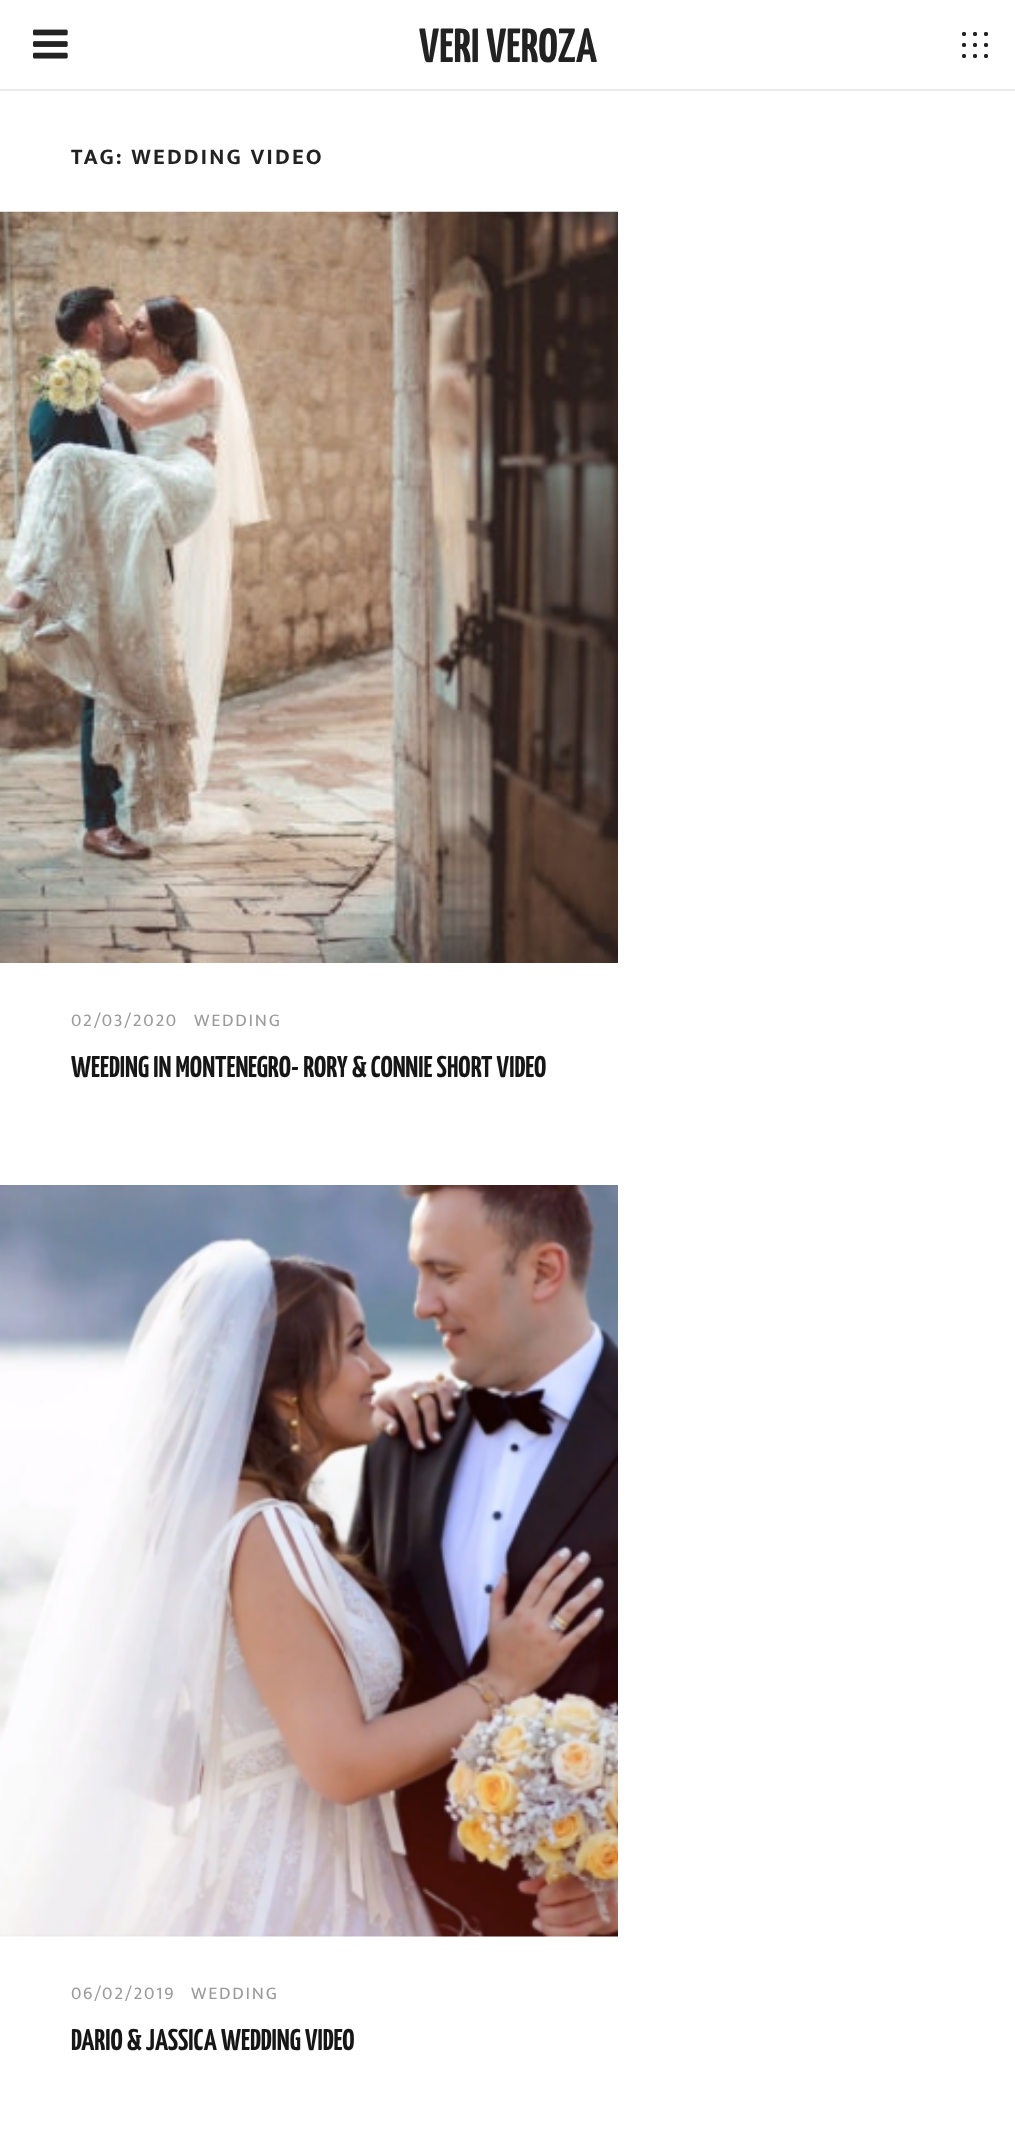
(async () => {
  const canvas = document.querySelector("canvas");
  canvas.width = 1015;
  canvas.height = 2146;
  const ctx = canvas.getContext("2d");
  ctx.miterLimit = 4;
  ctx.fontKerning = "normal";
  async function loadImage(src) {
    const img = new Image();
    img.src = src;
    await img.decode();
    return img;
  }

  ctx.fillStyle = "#ffffff";
  ctx.fillRect(0, 0, 1015, 2146);
  ctx.drawImage(await loadImage("img/1.png"), 32, 29, 36, 30);
  ctx.drawImage(await loadImage("img/2.png"), 962, 32, 26, 26);
  ctx.fillStyle = "#ebebeb";
  ctx.fillRect(0, 89, 1015, 2);
  ctx.drawImage(await loadImage("img/3.png"), 0, 211, 618, 752);
  ctx.drawImage(await loadImage("img/4.png"), 0, 1185, 618, 752);
  ctx.font = "bold 48px Yanone Kaffeesatz";
  ctx.fillStyle = "#222222";
  ctx.fillText("VERI VEROZA", 419, 62);
  ctx.letterSpacing = "2.25px";
  ctx.font = "bold 22.5px Ek Mukta";
  ctx.fillText("TAG: WEDDING VIDEO", 71, 164);
  ctx.letterSpacing = "1.75px";
  ctx.font = "18px Ek Mukta";
  ctx.fillStyle = "#9b9b9b";
  ctx.fillText("02/03/2020", 71, 1026);
  ctx.fillText("WEDDING", 194, 1026);
  ctx.letterSpacing = "0px";
  ctx.font = "bold 30px Yanone Kaffeesatz";
  ctx.fillStyle = "#171617";
  ctx.fillText("WEEDING IN MONTENEGRO- RORY & CONNIE SHORT VIDEO", 71, 1077);
  ctx.letterSpacing = "1.75px";
  ctx.font = "18px Ek Mukta";
  ctx.fillStyle = "#9b9b9b";
  ctx.fillText("06/02/2019", 71, 1999);
  ctx.fillText("WEDDING", 191, 1999);
  ctx.letterSpacing = "0px";
  ctx.font = "bold 30px Yanone Kaffeesatz";
  ctx.fillStyle = "#171617";
  ctx.fillText("DARIO & JASSICA WEDDING VIDEO", 71, 2050);
})();
